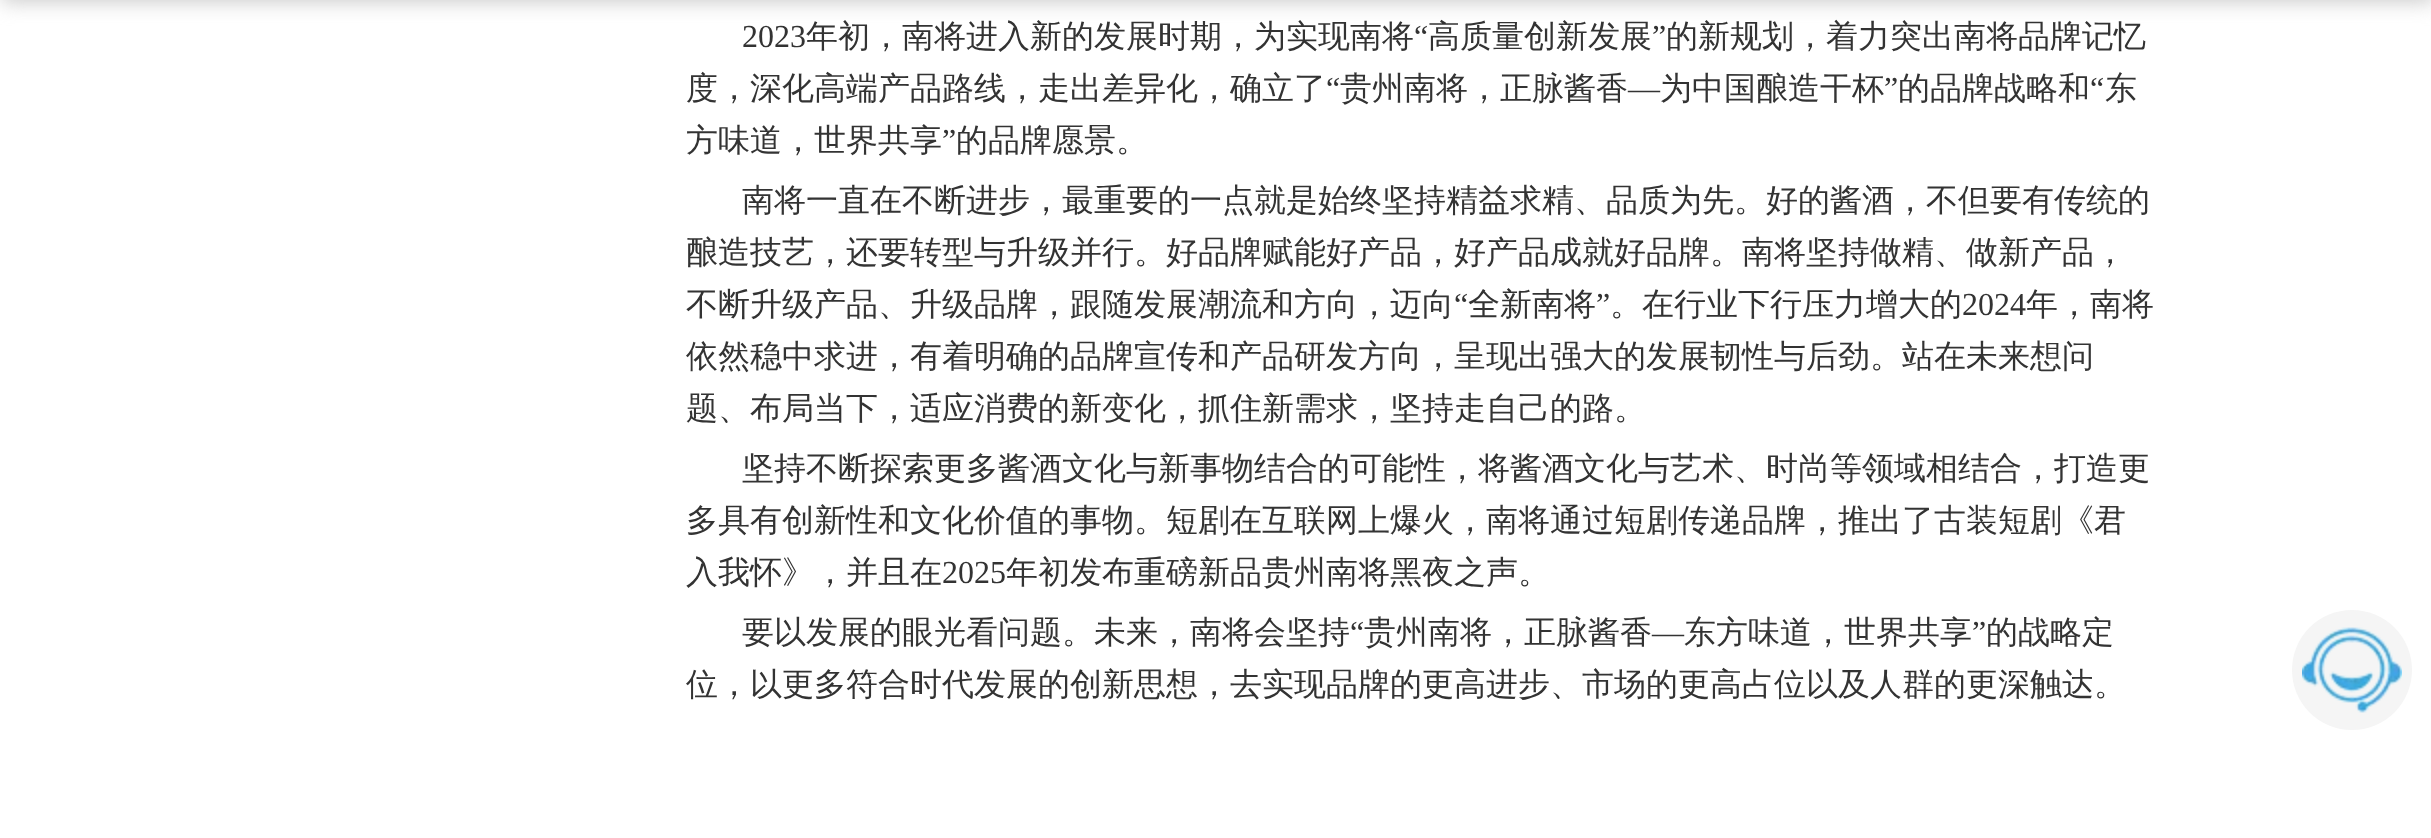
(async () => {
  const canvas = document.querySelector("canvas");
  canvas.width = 2431;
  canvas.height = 838;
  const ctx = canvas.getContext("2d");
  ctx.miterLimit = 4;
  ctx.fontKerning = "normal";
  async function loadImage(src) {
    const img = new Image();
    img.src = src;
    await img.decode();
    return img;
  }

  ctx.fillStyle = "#ffffff";
  ctx.fillRect(0, 0, 2431, 838);
  ctx.fillStyle = "#cacaca";
  ctx.filter = "blur(10px)";
  ctx.beginPath();
  ctx.rect(2, -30, 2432, 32);
  ctx.fill();
  ctx.filter = "none";
  ctx.fillStyle = "#f5f5f5";
  ctx.beginPath();
  ctx.arc(2352, 670, 60, 0, Math.PI * 2);
  ctx.fill();
  ctx.drawImage(await loadImage("img/1.png"), 2302, 627, 100, 86);
  ctx.font = "32px Liberation Serif";
  ctx.fillStyle = "#333333";
  ctx.fillText("2023", 742, 47);
  ctx.font = "500 32px WenQuanYi Zen Hei";
  ctx.fillText("年初，南将进入新的发展时期，为实现南将", 806, 47);
  ctx.font = "32px Liberation Serif";
  ctx.fillText("“", 1414, 47);
  ctx.font = "500 32px WenQuanYi Zen Hei";
  ctx.fillText("高质量创新发展", 1428, 47);
  ctx.font = "32px Liberation Serif";
  ctx.fillText("”", 1652, 47);
  ctx.font = "500 32px WenQuanYi Zen Hei";
  ctx.fillText("的新规划，着力突出南将品牌记忆", 1666, 47);
  ctx.fillText("度，深化高端产品路线，走出差异化，确立了", 686, 99);
  ctx.font = "32px Liberation Serif";
  ctx.fillText("“", 1326, 99);
  ctx.font = "500 32px WenQuanYi Zen Hei";
  ctx.fillText("贵州南将，正脉酱香", 1340, 99);
  ctx.fillText("为中国酿造干杯", 1660, 99);
  ctx.font = "32px Liberation Serif";
  ctx.fillText("”", 1884, 99);
  ctx.font = "500 32px WenQuanYi Zen Hei";
  ctx.fillText("的品牌战略和", 1898, 99);
  ctx.font = "32px Liberation Serif";
  ctx.fillText("“", 2090, 99);
  ctx.font = "500 32px WenQuanYi Zen Hei";
  ctx.fillText("东", 2105, 99);
  ctx.font = "32px Liberation Serif";
  ctx.fillText("—", 1628, 99);
  ctx.font = "500 32px WenQuanYi Zen Hei";
  ctx.fillText("方味道，世界共享", 686, 151);
  ctx.font = "32px Liberation Serif";
  ctx.fillText("”", 942, 151);
  ctx.font = "500 32px WenQuanYi Zen Hei";
  for (const [text, x, y] of [
    ["的品牌愿景。", 956, 151],
    ["南将一直在不断进步，最重要的一点就是始终坚持精益求精、品质为先。好的酱酒，不但要有传统的", 742, 211],
    ["酿造技艺，还要转型与升级并行。好品牌赋能好产品，好产品成就好品牌。南将坚持做精、做新产品，", 686, 263],
    ["不断升级产品、升级品牌，跟随发展潮流和方向，迈向", 686, 315],
  ]) {
    ctx.fillText(text, x, y);
  }
  ctx.font = "32px Liberation Serif";
  ctx.fillText("“", 1454, 315);
  ctx.font = "500 32px WenQuanYi Zen Hei";
  ctx.fillText("全新南将", 1468, 315);
  ctx.font = "32px Liberation Serif";
  ctx.fillText("”", 1596, 315);
  ctx.font = "500 32px WenQuanYi Zen Hei";
  ctx.fillText("。在行业下行压力增大的", 1610, 315);
  ctx.font = "32px Liberation Serif";
  ctx.fillText("2024", 1962, 315);
  ctx.font = "500 32px WenQuanYi Zen Hei";
  for (const [text, x, y] of [
    ["年，南将", 2026, 315],
    ["依然稳中求进，有着明确的品牌宣传和产品研发方向，呈现出强大的发展韧性与后劲。站在未来想问", 686, 367],
    ["题、布局当下，适应消费的新变化，抓住新需求，坚持走自己的路。", 686, 419],
    ["坚持不断探索更多酱酒文化与新事物结合的可能性，将酱酒文化与艺术、时尚等领域相结合，打造更", 742, 479],
    ["多具有创新性和文化价值的事物。短剧在互联网上爆火，南将通过短剧传递品牌，推出了古装短剧《君", 686, 531],
    ["入我怀》，并且在", 686, 583],
  ]) {
    ctx.fillText(text, x, y);
  }
  ctx.font = "32px Liberation Serif";
  ctx.fillText("2025", 942, 583);
  ctx.font = "500 32px WenQuanYi Zen Hei";
  ctx.fillText("年初发布重磅新品贵州南将黑夜之声。", 1006, 583);
  ctx.fillText("要以发展的眼光看问题。未来，南将会坚持", 742, 643);
  ctx.font = "32px Liberation Serif";
  ctx.fillText("“", 1350, 643);
  ctx.font = "500 32px WenQuanYi Zen Hei";
  ctx.fillText("贵州南将，正脉酱香", 1364, 643);
  ctx.font = "32px Liberation Serif";
  ctx.fillText("”", 1972, 643);
  ctx.font = "500 32px WenQuanYi Zen Hei";
  ctx.fillText("的战略定", 1986, 643);
  ctx.font = "32px Liberation Serif";
  ctx.fillText("—", 1652, 643);
  ctx.font = "500 32px WenQuanYi Zen Hei";
  ctx.fillText("东方味道，世界共享", 1684, 643);
  ctx.fillText("位，以更多符合时代发展的创新思想，去实现品牌的更高进步、市场的更高占位以及人群的更深触达。", 686, 695);
})();
